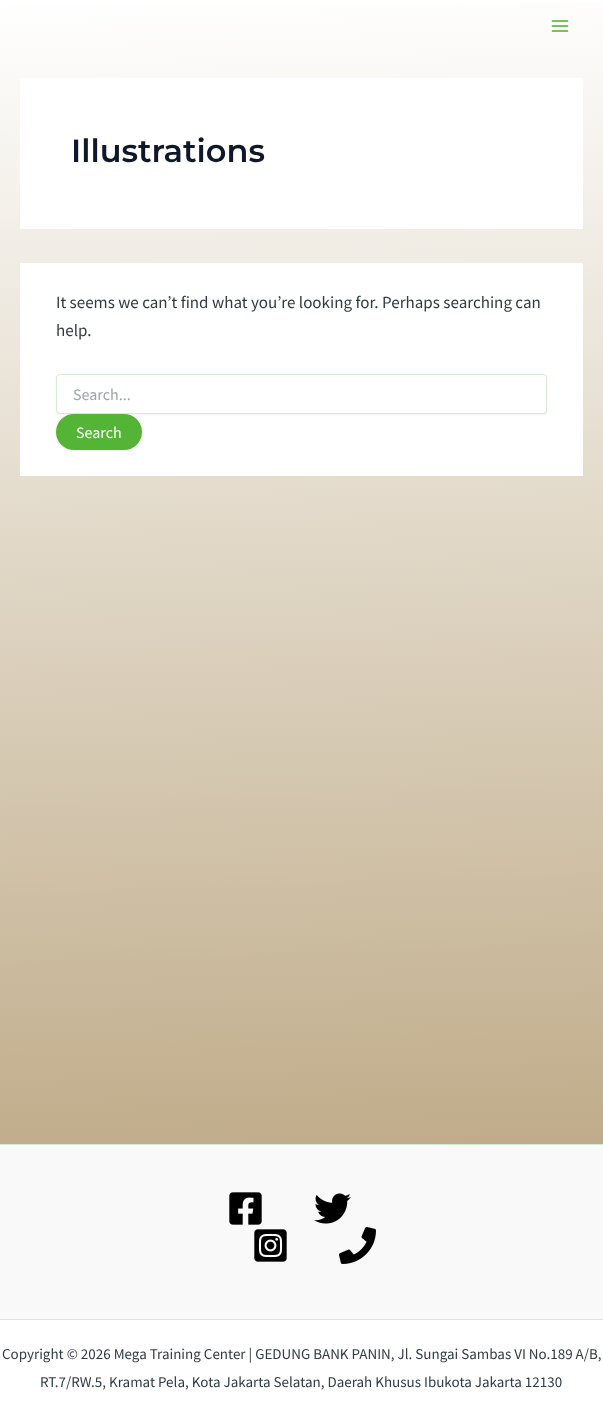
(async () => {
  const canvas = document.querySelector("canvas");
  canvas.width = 603;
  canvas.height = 1426;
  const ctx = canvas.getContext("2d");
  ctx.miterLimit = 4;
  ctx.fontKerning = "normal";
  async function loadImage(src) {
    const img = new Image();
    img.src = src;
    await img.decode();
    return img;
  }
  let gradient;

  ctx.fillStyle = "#ffffff";
  ctx.fillRect(0, 0, 603, 1426);
  gradient = ctx.createLinearGradient(273, -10, 330, 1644);
  gradient.addColorStop(0, "#ffffff");
  gradient.addColorStop(1, "#a58958");
  ctx.fillStyle = gradient;
  ctx.fillRect(0, 3, 603, 1141);
  ctx.drawImage(await loadImage("img/1.png"), 551, 20, 18, 12);
  ctx.fillStyle = "#ffffff";
  ctx.fillRect(20, 78, 563, 151);
  ctx.fillRect(20, 263, 563, 213);
  ctx.fillStyle = "rgba(0, 0, 0, 0.05)";
  ctx.filter = "blur(1px)";
  ctx.beginPath();
  ctx.roundRect(56, 375, 491, 40, 4);
  ctx.fill();
  ctx.filter = "none";
  ctx.fillStyle = "#ffffff";
  ctx.beginPath();
  ctx.roundRect(56.5, 374.5, 490, 39, 3.5);
  ctx.fill();
  ctx.strokeStyle = "#d5ead8";
  ctx.stroke();
  ctx.fillStyle = "rgba(0, 0, 0, 0.05)";
  ctx.filter = "blur(1px)";
  ctx.beginPath();
  ctx.roundRect(56, 415, 86, 36, 18);
  ctx.fill();
  ctx.filter = "none";
  ctx.fillStyle = "#54b435";
  ctx.beginPath();
  ctx.roundRect(56, 414, 86, 36, 18);
  ctx.fill();
  ctx.fillStyle = "#f9f9f9";
  ctx.fillRect(0, 1145, 603, 174);
  ctx.fillStyle = "#d5ead8";
  ctx.fillRect(0, 1144, 603, 1);
  ctx.drawImage(await loadImage("img/2.png"), 229, 1192, 33, 33);
  ctx.drawImage(await loadImage("img/3.png"), 314, 1193, 37, 31);
  ctx.drawImage(await loadImage("img/4.png"), 254, 1229, 33, 33);
  ctx.drawImage(await loadImage("img/5.png"), 339, 1227, 37, 37);
  ctx.fillRect(0, 1319, 603, 1);
  ctx.font = "600 32px Montserrat";
  ctx.fillStyle = "#0f172a";
  ctx.fillText("Illustrations", 71, 162);
  ctx.font = "17px Source Sans Pro";
  ctx.fillStyle = "#2f3b40";
  ctx.fillText("It seems we can’t find what you’re looking for. Perhaps searching can", 56, 308);
  ctx.fillText("help.", 56, 336);
  ctx.font = "16px Source Sans Pro";
  ctx.fillStyle = "#9ca3af";
  ctx.fillText("Search...", 73, 400);
  ctx.fillStyle = "#ffffff";
  ctx.fillText("Search", 76, 438);
  ctx.font = "15px Source Sans Pro";
  ctx.fillStyle = "#2f3b40";
  ctx.fillText("Copyright © 2026 Mega Training Center | GEDUNG BANK PANIN, Jl. Sungai Sambas VI No.189 A/B,", 2, 1359);
  ctx.fillText("RT.7/RW.5, Kramat Pela, Kota Jakarta Selatan, Daerah Khusus Ibukota Jakarta 12130", 40, 1387);
})();
